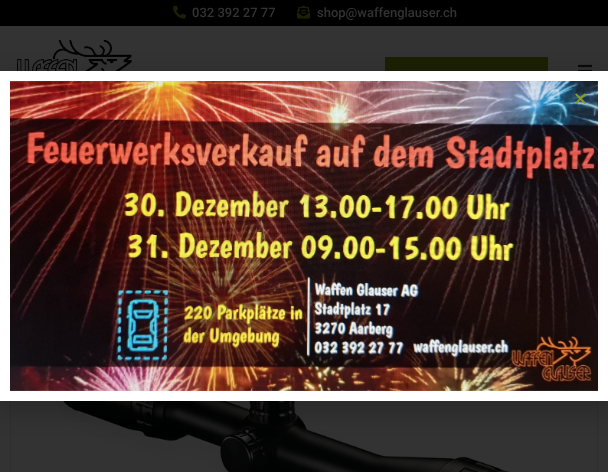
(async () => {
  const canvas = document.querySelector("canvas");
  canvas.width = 608;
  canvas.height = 472;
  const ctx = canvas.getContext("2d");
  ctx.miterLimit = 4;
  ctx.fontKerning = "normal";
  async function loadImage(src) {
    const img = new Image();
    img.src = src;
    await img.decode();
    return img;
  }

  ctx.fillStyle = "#333333";
  ctx.fillRect(0, 0, 608, 472);
  ctx.fillStyle = "#000000";
  ctx.fillRect(0, 0, 608, 26);
  ctx.drawImage(await loadImage("img/1.png"), 173, 5, 13, 14);
  ctx.drawImage(await loadImage("img/2.png"), 297, 5, 13, 14);
  ctx.drawImage(await loadImage("img/3.png"), 17, 39, 115, 32);
  ctx.fillStyle = "#1c2003";
  ctx.beginPath();
  ctx.rect(386, 58, 161, 27);
  ctx.fill();
  ctx.strokeStyle = "#1c2003";
  ctx.lineWidth = 2;
  ctx.stroke();
  ctx.drawImage(await loadImage("img/4.png"), 578, 64, 14, 7);
  ctx.strokeStyle = "#2e2e2e";
  ctx.lineWidth = 1;
  ctx.strokeRect(10.5, 294.5, 587, 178);
  ctx.drawImage(await loadImage("img/7.png"), 58, 401, 467, 71);
  ctx.fillStyle = "rgba(0, 0, 0, 0.2)";
  ctx.filter = "blur(11.5px)";
  ctx.beginPath();
  ctx.rect(-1, 76, 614, 336);
  ctx.fill();
  ctx.filter = "none";
  ctx.fillStyle = "#ffffff";
  ctx.fillRect(0, 71, 608, 330);
  ctx.drawImage(await loadImage("img/5.png"), 10, 81, 588, 310);
  ctx.drawImage(await loadImage("img/6.png"), 575, 93, 11, 11);
  ctx.font = "500 13px Roboto";
  ctx.fillStyle = "#333333";
  ctx.fillText("032 392 27 77", 192, 17);
  ctx.fillText("shop@waffenglauser.ch", 317, 17);
})();
